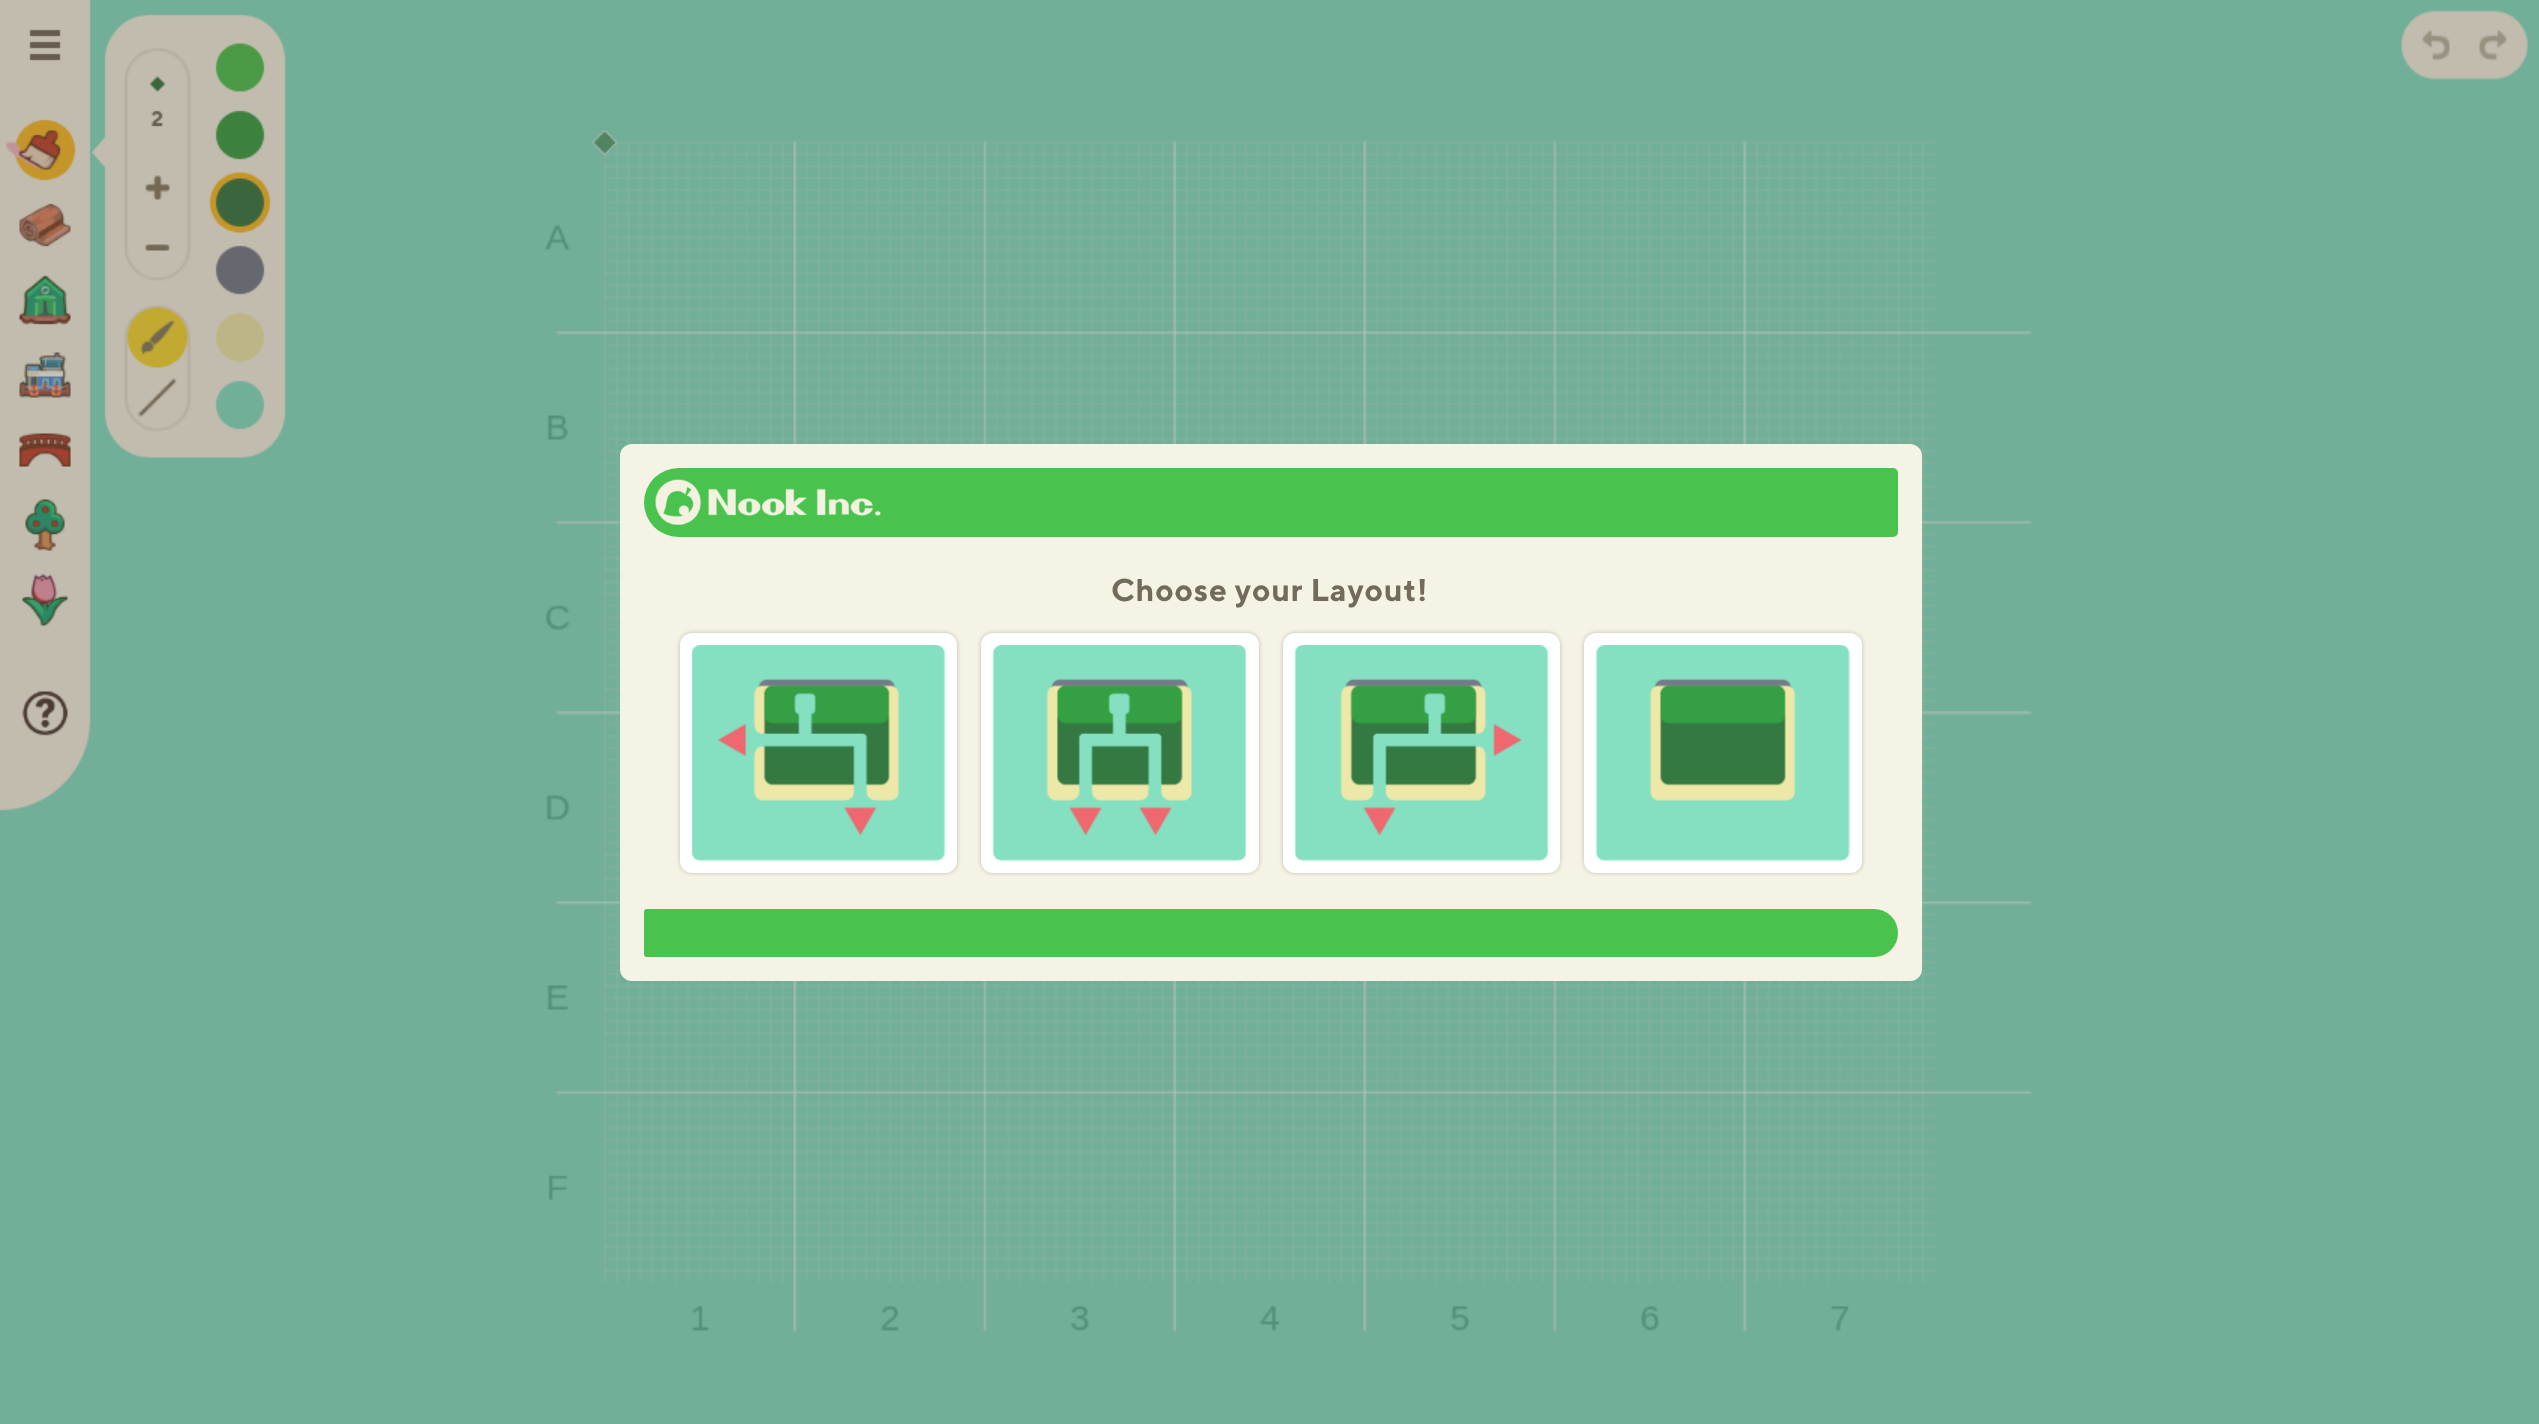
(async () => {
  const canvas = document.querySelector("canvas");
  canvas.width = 2539;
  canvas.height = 1424;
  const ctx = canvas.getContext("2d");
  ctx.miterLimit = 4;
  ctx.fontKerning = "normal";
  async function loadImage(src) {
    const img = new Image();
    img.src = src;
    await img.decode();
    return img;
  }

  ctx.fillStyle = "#ffffff";
  ctx.fillRect(0, 0, 2539, 1424);
  ctx.drawImage(await loadImage("img/1.png"), 0, 0, 2539, 1424);
  ctx.fillStyle = "#f5f3e5";
  ctx.beginPath();
  ctx.roundRect(620, 444, 1302, 537, 12);
  ctx.fill();
  ctx.fillStyle = "#4ac34e";
  ctx.beginPath();
  ctx.roundRect(644, 468, 1254, 69, [34.5, 5, 5, 34.5]);
  ctx.fill();
  ctx.drawImage(await loadImage("img/2.png"), 655, 479, 226, 46);
  ctx.fillStyle = "rgba(75, 59, 50, 0.3)";
  ctx.filter = "blur(2px)";
  ctx.beginPath();
  ctx.roundRect(680, 633, 277, 240, 12);
  ctx.fill();
  ctx.filter = "none";
  ctx.fillStyle = "#ffffff";
  ctx.beginPath();
  ctx.roundRect(680, 633, 277, 240, 12);
  ctx.fill();
  ctx.drawImage(await loadImage("img/3.png"), 692, 645, 254, 216);
  ctx.fillStyle = "rgba(75, 59, 50, 0.3)";
  ctx.filter = "blur(2px)";
  ctx.beginPath();
  ctx.roundRect(981, 633, 278, 240, 12);
  ctx.fill();
  ctx.filter = "none";
  ctx.fillStyle = "#ffffff";
  ctx.beginPath();
  ctx.roundRect(981, 633, 278, 240, 12);
  ctx.fill();
  ctx.drawImage(await loadImage("img/4.png"), 992, 645, 255, 216);
  ctx.fillStyle = "rgba(75, 59, 50, 0.3)";
  ctx.filter = "blur(2px)";
  ctx.beginPath();
  ctx.roundRect(1283, 633, 277, 240, 12);
  ctx.fill();
  ctx.filter = "none";
  ctx.fillStyle = "#ffffff";
  ctx.beginPath();
  ctx.roundRect(1283, 633, 277, 240, 12);
  ctx.fill();
  ctx.drawImage(await loadImage("img/5.png"), 1294, 645, 255, 216);
  ctx.fillStyle = "rgba(75, 59, 50, 0.3)";
  ctx.filter = "blur(2px)";
  ctx.beginPath();
  ctx.roundRect(1584, 633, 278, 240, 12);
  ctx.fill();
  ctx.filter = "none";
  ctx.fillStyle = "#ffffff";
  ctx.beginPath();
  ctx.roundRect(1584, 633, 278, 240, 12);
  ctx.fill();
  ctx.drawImage(await loadImage("img/6.png"), 1595, 645, 255, 216);
  ctx.fillStyle = "#4ac34e";
  ctx.beginPath();
  ctx.roundRect(644, 909, 1254, 48, [3, 24, 24, 3]);
  ctx.fill();
  ctx.letterSpacing = "0.75px";
  ctx.font = "bold 31.5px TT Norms";
  ctx.fillStyle = "#726a5a";
  ctx.fillText("Choose your Layout!", 1111, 601);
})();
